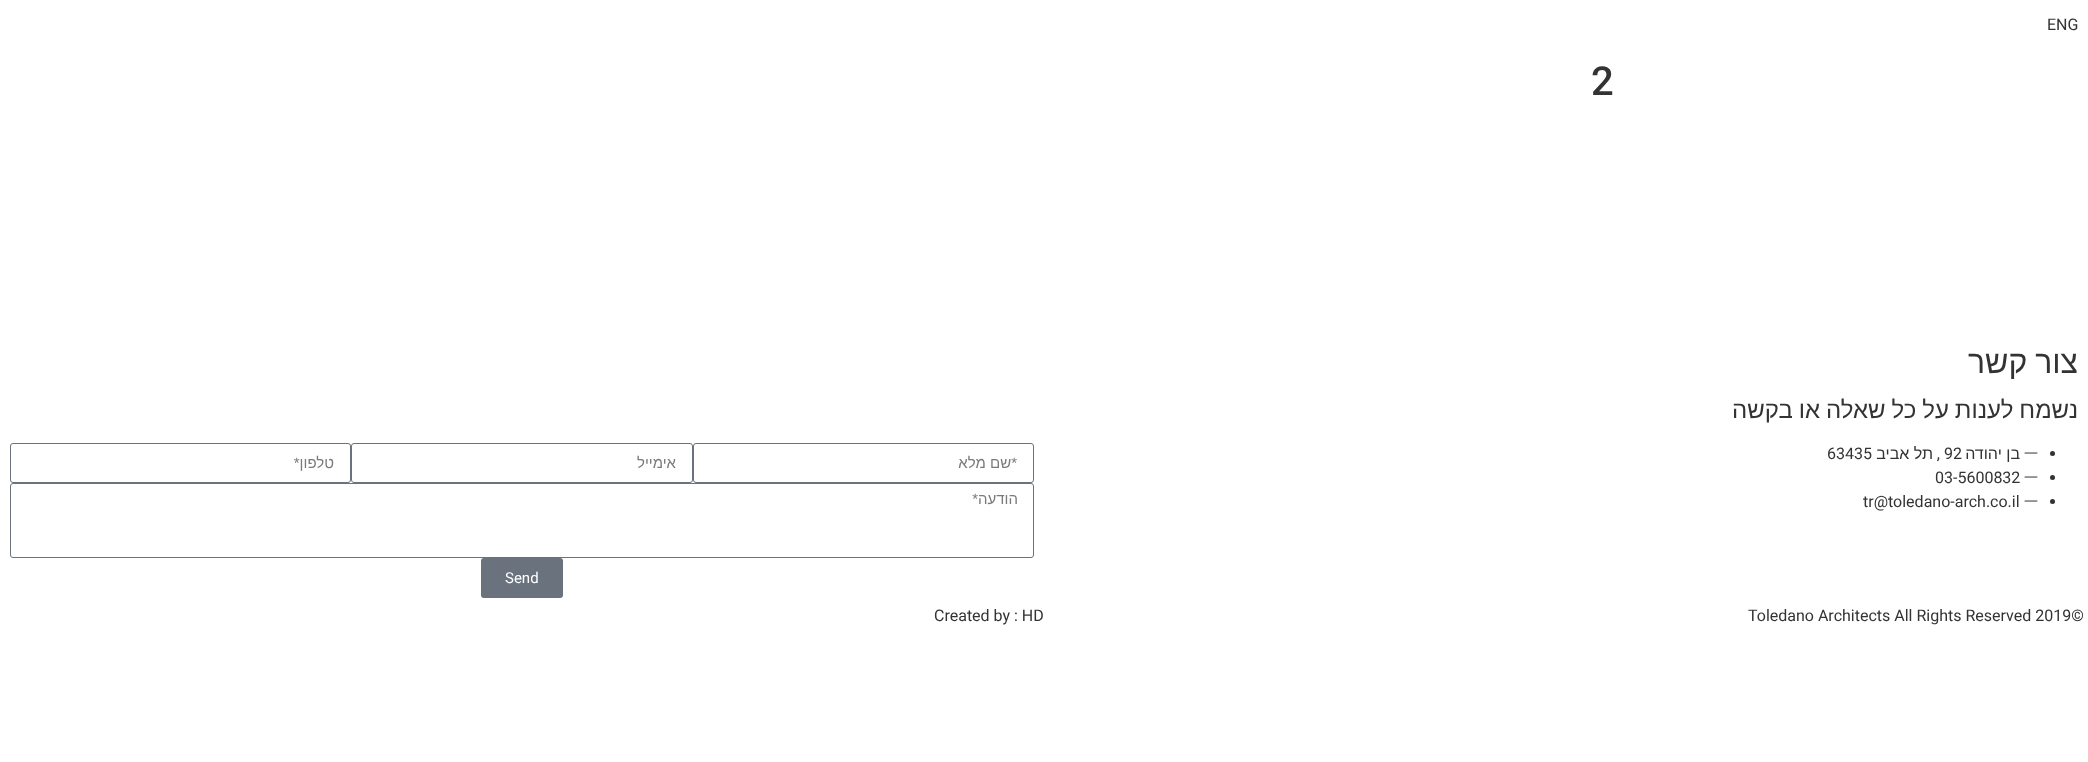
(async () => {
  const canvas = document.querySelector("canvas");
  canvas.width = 2088;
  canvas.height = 762;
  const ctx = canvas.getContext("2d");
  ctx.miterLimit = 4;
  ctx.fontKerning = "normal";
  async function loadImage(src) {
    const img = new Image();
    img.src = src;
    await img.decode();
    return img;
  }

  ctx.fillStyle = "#ffffff";
  ctx.fillRect(0, 0, 2088, 762);
  ctx.beginPath();
  ctx.roundRect(10.5, 443.5, 340, 39, 2.5);
  ctx.strokeStyle = "#69727d";
  ctx.stroke();
  ctx.beginPath();
  ctx.roundRect(351.5, 443.5, 341, 39, 2.5);
  ctx.stroke();
  ctx.beginPath();
  ctx.roundRect(693.5, 443.5, 340, 39, 2.5);
  ctx.stroke();
  ctx.beginPath();
  ctx.roundRect(10.5, 483.5, 1023, 74, 2.5);
  ctx.stroke();
  ctx.fillStyle = "#69727d";
  ctx.beginPath();
  ctx.roundRect(481, 558, 82, 40, 3);
  ctx.fill();
  ctx.drawImage(await loadImage("img/1.png"), 2024, 452, 14, 2);
  ctx.fillStyle = "#333333";
  ctx.beginPath();
  ctx.arc(2052.5, 453.5, 2.5, 0, Math.PI * 2);
  ctx.fill();
  ctx.drawImage(await loadImage("img/1.png"), 2024, 476, 14, 2);
  ctx.beginPath();
  ctx.arc(2052.5, 477.5, 2.5, 0, Math.PI * 2);
  ctx.fill();
  ctx.drawImage(await loadImage("img/1.png"), 2024, 500, 14, 2);
  ctx.beginPath();
  ctx.arc(2052.5, 501.5, 2.5, 0, Math.PI * 2);
  ctx.fill();
  ctx.font = "16px Roboto";
  ctx.fillText("ENG", 2047, 30);
  ctx.font = "500 40px Roboto";
  ctx.fillText("2", 1591, 95);
  ctx.wordSpacing = "-1px";
  ctx.direction = "rtl";
  ctx.font = "32px Liberation Sans";
  ctx.fillText("צור קשר", 2078, 373);
  ctx.wordSpacing = "-0.75px";
  ctx.font = "24px Liberation Sans";
  ctx.fillText("נשמח לענות על כל שאלה או בקשה", 2078, 418);
  ctx.wordSpacing = "0px";
  ctx.font = "15px Liberation Sans";
  ctx.fillStyle = "#797a7c";
  for (const [text, x, y] of [
    ["טלפון*", 334, 468],
    ["אימייל", 676, 468],
    ["*שם מלא", 1017, 468],
    ["הודעה*", 1018, 504],
  ]) {
    ctx.fillText(text, x, y);
  }
  ctx.direction = "ltr";
  ctx.font = "15px Roboto";
  ctx.fillStyle = "#ffffff";
  ctx.fillText("Send", 505, 583);
  ctx.font = "16px Roboto";
  ctx.fillStyle = "#333333";
  ctx.fillText("63435", 1827, 459);
  ctx.direction = "rtl";
  ctx.font = "16px Liberation Sans";
  ctx.fillText("תל אביב", 1933, 459);
  ctx.direction = "ltr";
  ctx.font = "16px Roboto";
  ctx.fillText("92", 1944, 459);
  ctx.direction = "rtl";
  ctx.font = "16px Liberation Sans";
  ctx.fillText("בן יהודה", 2020, 459);
  ctx.font = "16px Roboto";
  ctx.fillText(",", 1940, 459);
  ctx.direction = "ltr";
  for (const [text, x, y] of [
    ["03-5600832", 1935, 483],
    ["tr@toledano-arch.co.il", 1863, 507],
    ["Created by : HD", 934, 621],
    ["Toledano Architects All Rights Reserved 2019©", 1748, 621],
  ]) {
    ctx.fillText(text, x, y);
  }
})();
